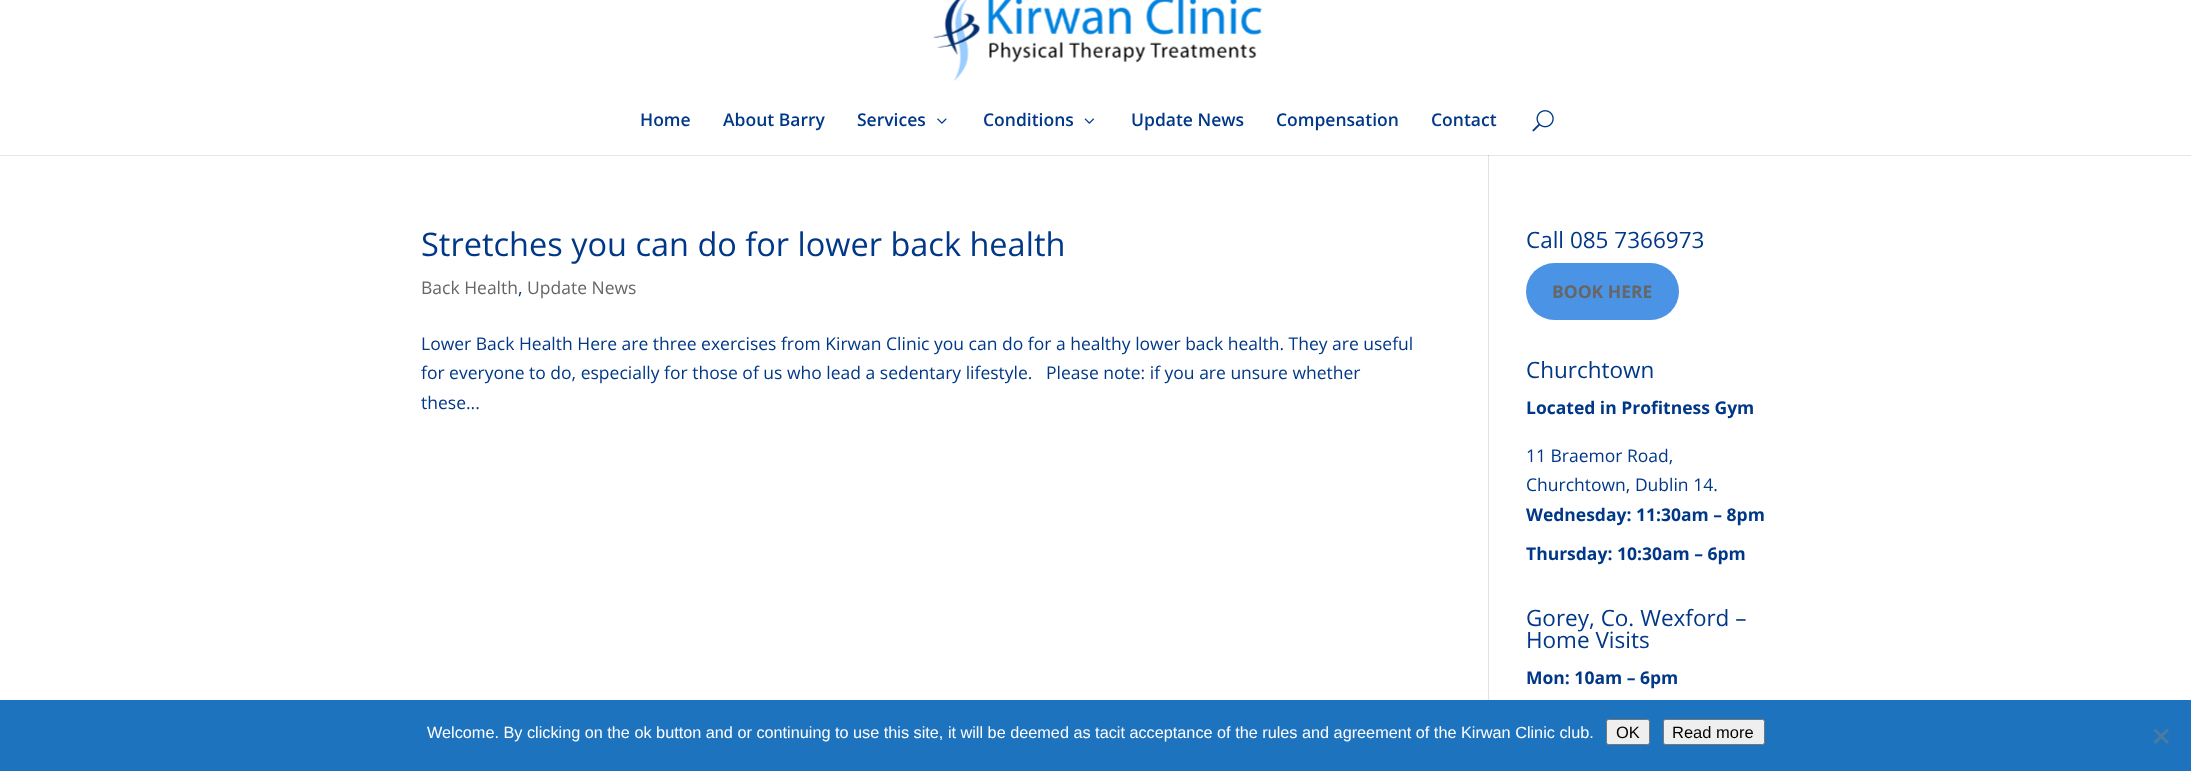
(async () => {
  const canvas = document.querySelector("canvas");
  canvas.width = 2191;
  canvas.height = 771;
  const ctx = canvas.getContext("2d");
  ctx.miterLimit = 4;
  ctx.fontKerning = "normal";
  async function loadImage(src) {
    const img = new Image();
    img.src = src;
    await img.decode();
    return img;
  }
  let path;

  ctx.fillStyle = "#ffffff";
  ctx.fillRect(0, 0, 2191, 771);
  ctx.fillStyle = "#e6e6e6";
  ctx.fillRect(0, 155, 2191, 1);
  ctx.drawImage(await loadImage("img/1.png"), 933, 0, 330, 81);
  ctx.drawImage(await loadImage("img/2.png"), 937, 118, 10, 6);
  ctx.drawImage(await loadImage("img/3.png"), 1084, 118, 10, 6);
  ctx.drawImage(await loadImage("img/4.png"), 1532, 110, 22, 22);
  ctx.fillStyle = "#e2e2e2";
  ctx.fillRect(1488, 155, 1, 545);
  ctx.fillStyle = "#cbcbcb";
  ctx.fillRect(1488, 155, 1, 1);
  ctx.fillStyle = "#4b93e5";
  ctx.beginPath();
  ctx.roundRect(1526, 263, 153, 57, 28.5);
  ctx.fill();
  ctx.fillStyle = "#1e73be";
  ctx.fillRect(0, 700, 2191, 71);
  ctx.fillStyle = "#efefef";
  ctx.beginPath();
  ctx.roundRect(1606.5, 719.5, 43, 25, 2);
  ctx.fill();
  ctx.strokeStyle = "#767676";
  ctx.stroke();
  ctx.beginPath();
  ctx.roundRect(1663.5, 719.5, 101, 25, 2);
  ctx.fill();
  ctx.stroke();
  ctx.fillStyle = "#4f7a9f";
  path = new Path2D("M2167 728.5L2169 730.5L2155.5 744L2153.5 742Z");
  ctx.fill(path);
  path = new Path2D("M2153.5 730.5L2155.5 728.5L2169 742L2167 744Z");
  ctx.fill(path);
  ctx.font = "600 17.5px Open Sans";
  ctx.fillStyle = "#003887";
  for (const [text, x, y] of [
    ["Home", 640, 126],
    ["About Barry", 723, 126],
    ["Services", 857, 126],
    ["Conditions", 983, 126],
    ["Update News", 1131, 126],
    ["Compensation", 1276, 126],
    ["Contact", 1431, 126],
  ]) {
    ctx.fillText(text, x, y);
  }
  ctx.font = "32.5px Open Sans";
  ctx.fillText("Stretches you can do for lower back health", 421, 256);
  ctx.font = "17.5px Open Sans";
  ctx.fillStyle = "#666666";
  ctx.fillText("Back Health", 421, 294);
  ctx.fillStyle = "#003887";
  ctx.fillText(",", 518, 294);
  ctx.fillStyle = "#666666";
  ctx.fillText("Update News", 527, 294);
  ctx.fillStyle = "#003887";
  for (const [text, x, y] of [
    ["Lower Back Health Here are three exercises from Kirwan Clinic you can do for a healthy lower back health. They are useful", 421, 350],
    ["for everyone to do, especially for those of us who lead a sedentary lifestyle.   Please note: if you are unsure whether", 421, 379],
    ["these...", 421, 409],
  ]) {
    ctx.fillText(text, x, y);
  }
  ctx.font = "22.5px Open Sans";
  ctx.fillText("Call 085 7366973", 1526, 248);
  ctx.font = "bold 17.5px Open Sans";
  ctx.fillStyle = "#666666";
  ctx.fillText("BOOK HERE", 1552, 298);
  ctx.font = "22.5px Open Sans";
  ctx.fillStyle = "#003887";
  ctx.fillText("Churchtown", 1526, 378);
  ctx.font = "bold 17.5px Open Sans";
  ctx.fillText("Located in Profitness Gym", 1526, 414);
  ctx.font = "17.5px Open Sans";
  ctx.fillText("11 Braemor Road,", 1526, 462);
  ctx.fillText("Churchtown, Dublin 14.", 1526, 491);
  ctx.font = "bold 17.5px Open Sans";
  ctx.fillText("Wednesday: 11:30am – 8pm", 1526, 521);
  ctx.fillText("Thursday: 10:30am – 6pm", 1526, 560);
  ctx.font = "22.5px Open Sans";
  ctx.fillText("Gorey, Co. Wexford –", 1526, 626);
  ctx.fillText("Home Visits", 1526, 648);
  ctx.font = "bold 17.5px Open Sans";
  ctx.fillText("Mon: 10am – 6pm", 1526, 684);
  ctx.font = "16.25px Liberation Sans";
  ctx.fillStyle = "#ffffff";
  ctx.fillText("Welcome. By clicking on the ok button and or continuing to use this site, it will be deemed as tacit acceptance of the rules and agreement of the Kirwan Clinic club.", 427, 738);
  ctx.font = "16.5px Liberation Sans";
  ctx.fillStyle = "#000000";
  ctx.fillText("OK", 1616, 738);
  ctx.fillText("Read more", 1672, 738);
})();
